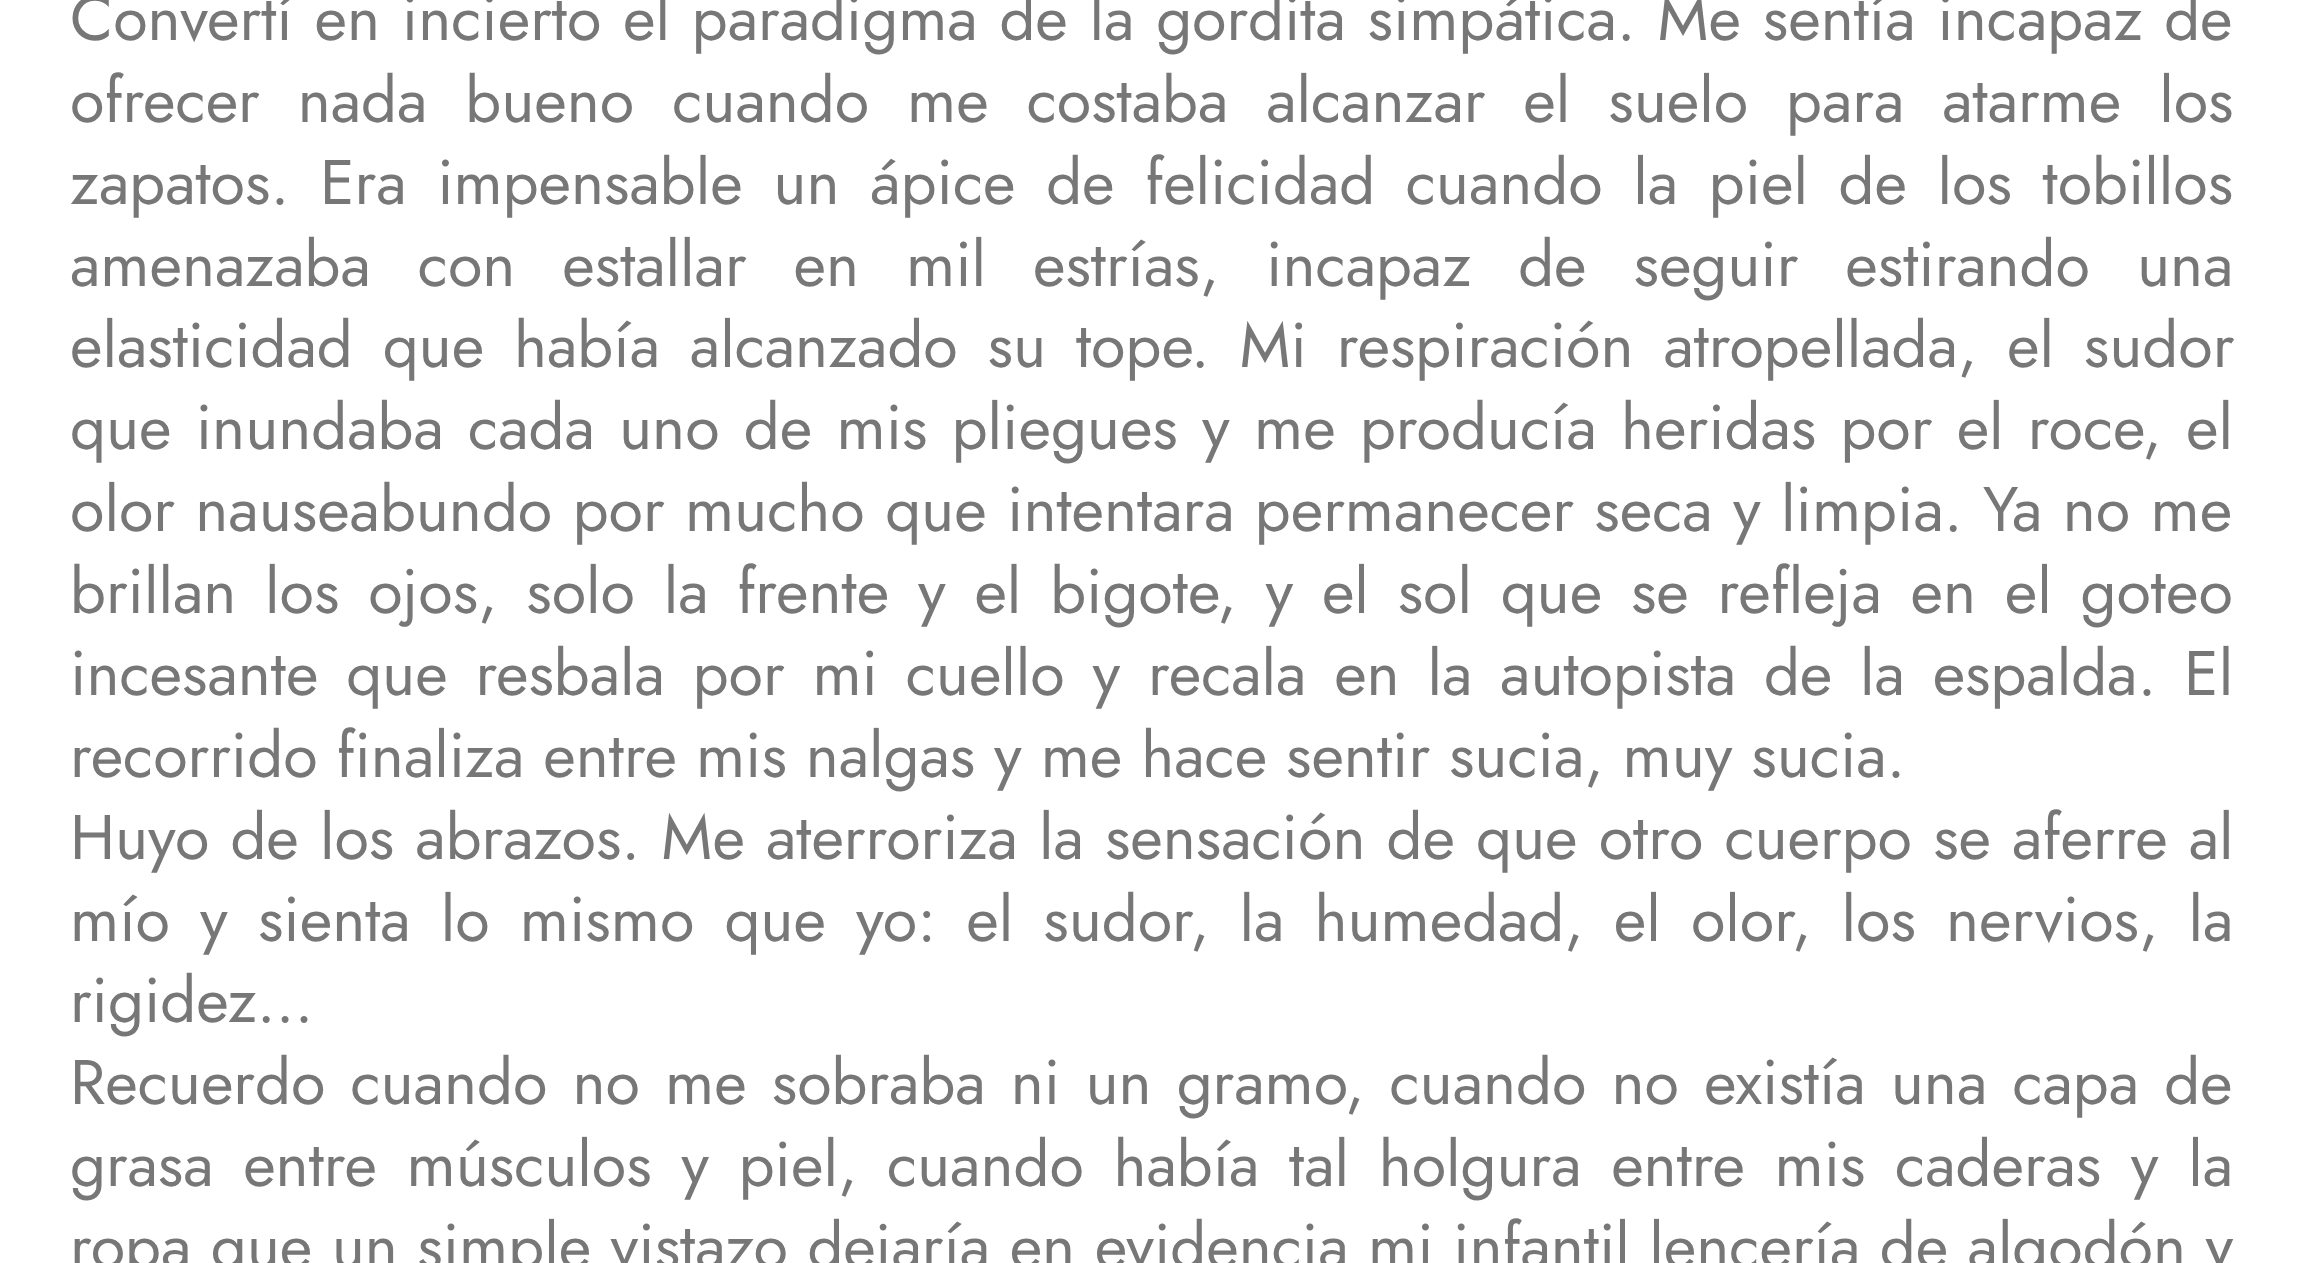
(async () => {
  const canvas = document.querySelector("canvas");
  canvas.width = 2301;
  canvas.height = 1263;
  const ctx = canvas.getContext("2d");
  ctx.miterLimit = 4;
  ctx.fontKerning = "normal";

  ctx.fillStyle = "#ffffff";
  ctx.fillRect(0, 0, 2301, 1263);
  ctx.wordSpacing = "2.9px";
  ctx.font = "63px Jost";
  ctx.fillStyle = "#777777";
  ctx.fillText("Convertí en incierto el paradigma de la gordita simpática. Me sentía incapaz de", 70, 40);
  ctx.wordSpacing = "19.1px";
  ctx.fillText("ofrecer nada bueno cuando me costaba alcanzar el suelo para atarme los", 70, 122);
  ctx.wordSpacing = "11.75px";
  ctx.fillText("zapatos. Era impensable un ápice de felicidad cuando la piel de los tobillos", 70, 204);
  ctx.wordSpacing = "28.1px";
  ctx.fillText("amenazaba con estallar en mil estrías, incapaz de seguir estirando una", 70, 286);
  ctx.wordSpacing = "11px";
  ctx.fillText("elasticidad que había alcanzado su tope. Mi respiración atropellada, el sudor", 70, 367);
  ctx.wordSpacing = "5.4px";
  ctx.fillText("que inundaba cada uno de mis pliegues y me producía heridas por el roce, el", 70, 449);
  ctx.wordSpacing = "1.5px";
  ctx.fillText("olor nauseabundo por mucho que intentara permanecer seca y limpia. Ya no me", 70, 531);
  ctx.wordSpacing = "9.9px";
  ctx.fillText("brillan los ojos, solo la frente y el bigote, y el sol que se refleja en el goteo", 70, 613);
  ctx.wordSpacing = "8.9px";
  ctx.fillText("incesante que resbala por mi cuello y recala en la autopista de la espalda. El", 70, 695);
  ctx.wordSpacing = "0px";
  ctx.fillText("recorrido finaliza entre mis nalgas y me hace sentir sucia, muy sucia.", 70, 777);
  ctx.wordSpacing = "2.25px";
  ctx.fillText("Huyo de los abrazos. Me aterroriza la sensación de que otro cuerpo se aferre al", 70, 859);
  ctx.wordSpacing = "11.25px";
  ctx.fillText("mío y sienta lo mismo que yo: el sudor, la humedad, el olor, los nervios, la", 70, 941);
  ctx.wordSpacing = "0px";
  ctx.fillText("rigidez…", 70, 1022);
  ctx.wordSpacing = "6.25px";
  ctx.fillText("Recuerdo cuando no me sobraba ni un gramo, cuando no existía una capa de", 70, 1104);
  ctx.wordSpacing = "10.75px";
  ctx.fillText("grasa entre músculos y piel, cuando había tal holgura entre mis caderas y la", 70, 1186);
  ctx.wordSpacing = "0.6px";
  ctx.fillText("ropa que un simple vistazo dejaría en evidencia mi infantil lencería de algodón y", 70, 1268);
})();
